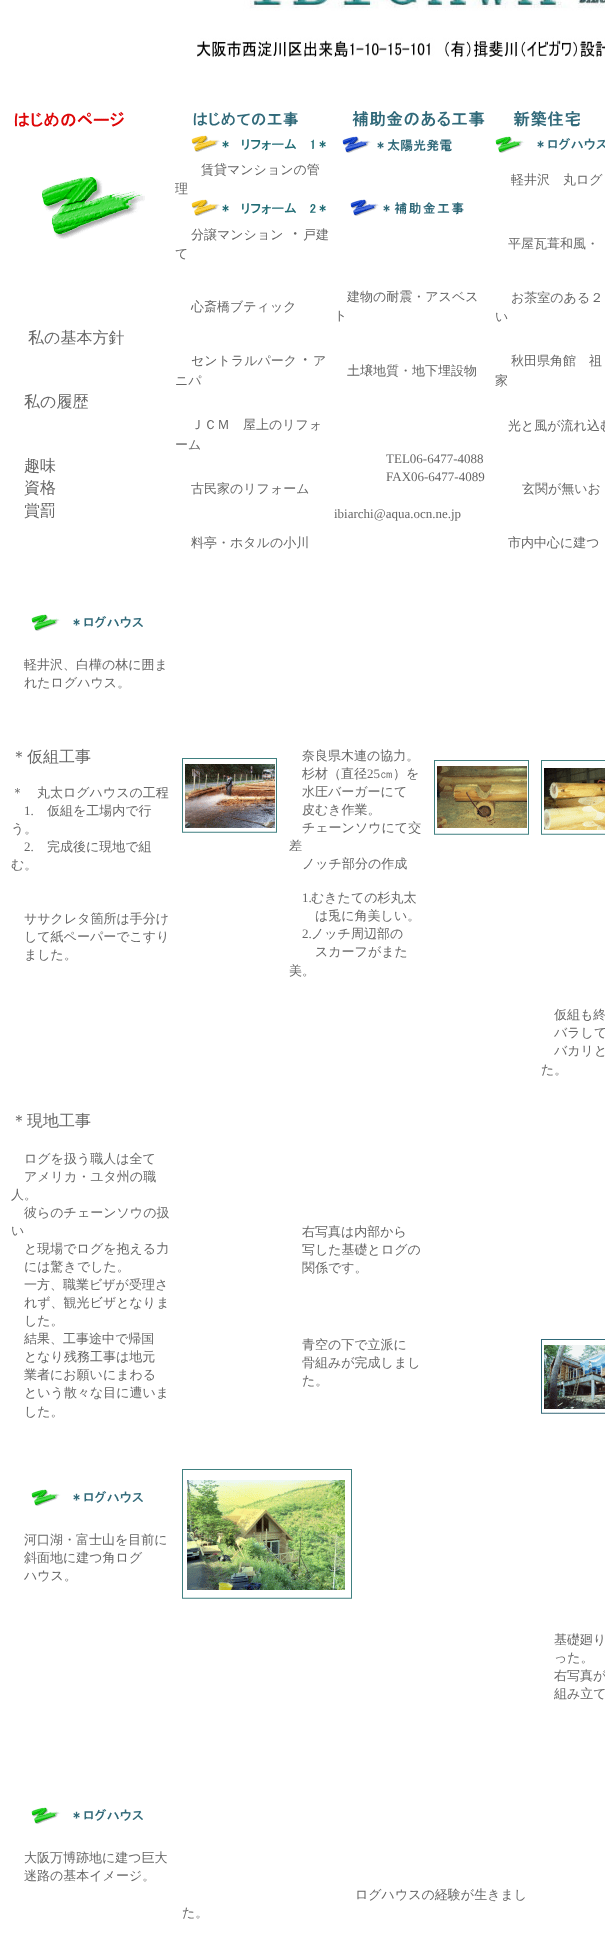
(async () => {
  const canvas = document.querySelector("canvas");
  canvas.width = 605;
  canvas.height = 1936;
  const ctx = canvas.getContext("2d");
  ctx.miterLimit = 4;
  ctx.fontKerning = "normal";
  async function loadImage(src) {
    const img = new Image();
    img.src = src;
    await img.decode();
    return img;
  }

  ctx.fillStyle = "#ffffff";
  ctx.fillRect(0, 0, 605, 1936);
  ctx.drawImage(await loadImage("img/1.png"), 197, 0, 408, 57);
  ctx.drawImage(await loadImage("img/2.png"), 14, 111, 110, 16);
  ctx.drawImage(await loadImage("img/3.png"), 193, 111, 105, 16);
  ctx.drawImage(await loadImage("img/4.png"), 352, 111, 133, 16);
  ctx.drawImage(await loadImage("img/5.png"), 513, 110, 67, 17);
  ctx.drawImage(await loadImage("img/6.png"), 191, 135, 135, 17);
  ctx.drawImage(await loadImage("img/7.png"), 342, 136, 110, 17);
  ctx.drawImage(await loadImage("img/8.png"), 495, 136, 110, 17);
  ctx.drawImage(await loadImage("img/9.png"), 42, 177, 103, 62);
  ctx.drawImage(await loadImage("img/10.png"), 191, 199, 135, 17);
  ctx.drawImage(await loadImage("img/11.png"), 350, 199, 114, 17);
  ctx.drawImage(await loadImage("img/12.png"), 31, 614, 112, 17);
  ctx.drawImage(await loadImage("img/13.png"), 182, 758, 95, 75);
  ctx.drawImage(await loadImage("img/14.png"), 434, 760, 95, 75);
  ctx.drawImage(await loadImage("img/15.png"), 541, 760, 64, 75);
  ctx.drawImage(await loadImage("img/16.png"), 541, 1339, 64, 75);
  ctx.drawImage(await loadImage("img/12.png"), 31, 1489, 112, 17);
  ctx.drawImage(await loadImage("img/17.png"), 182, 1469, 170, 130);
  ctx.drawImage(await loadImage("img/12.png"), 31, 1807, 112, 17);
  ctx.font = "500 13px WenQuanYi Zen Hei";
  ctx.fillStyle = "#666666";
  for (const [text, x, y] of [
    ["賃貸マンションの管", 201, 174],
    ["理", 175, 193],
    ["軽井沢　丸ログ", 511, 184],
    ["分譲マンション", 191, 239],
  ]) {
    ctx.fillText(text, x, y);
  }
  ctx.font = "500 16px WenQuanYi Zen Hei";
  ctx.fillText("・", 287, 239);
  ctx.font = "500 13px WenQuanYi Zen Hei";
  for (const [text, x, y] of [
    ["戸建", 303, 239],
    ["て", 175, 258],
    ["平屋瓦葺和風・", 508, 248],
    ["心斎橋ブティック", 191, 311],
    ["建物の耐震・アスベス", 347, 301],
    ["ト", 334, 320],
    ["お茶室のある２", 511, 302],
    ["い", 495, 321],
  ]) {
    ctx.fillText(text, x, y);
  }
  ctx.font = "500 16px WenQuanYi Zen Hei";
  ctx.fillText("私の基本方針", 28, 343);
  ctx.font = "500 13px WenQuanYi Zen Hei";
  ctx.fillText("セントラルパーク", 191, 365);
  ctx.font = "500 16px WenQuanYi Zen Hei";
  ctx.fillText("・", 297, 365);
  ctx.font = "500 13px WenQuanYi Zen Hei";
  for (const [text, x, y] of [
    ["ア", 313, 365],
    ["ニパ", 175, 385],
    ["土壌地質・地下埋設物", 347, 375],
    ["秋田県角館　祖", 511, 365],
    ["家", 495, 385],
  ]) {
    ctx.fillText(text, x, y);
  }
  ctx.font = "500 16px WenQuanYi Zen Hei";
  ctx.fillText("私の履歴", 24, 407);
  ctx.fillText("趣味", 24, 471);
  ctx.font = "500 13px WenQuanYi Zen Hei";
  for (const [text, x, y] of [
    ["ＪＣＭ　屋上のリフォ", 191, 429],
    ["ーム", 175, 449],
    ["光と風が流れ込む", 508, 430],
  ]) {
    ctx.fillText(text, x, y);
  }
  ctx.font = "13px Liberation Serif";
  for (const [text, x, y] of [
    ["TEL06-6477-4088", 386, 463],
    ["FAX06-6477-4089", 386, 481],
    ["ibiarchi@aqua.ocn.ne.jp", 334, 518],
  ]) {
    ctx.fillText(text, x, y);
  }
  ctx.font = "500 16px WenQuanYi Zen Hei";
  ctx.fillText("資格", 24, 493);
  ctx.font = "500 13px WenQuanYi Zen Hei";
  ctx.fillText("古民家のリフォーム", 191, 493);
  ctx.fillText("玄関が無いお", 522, 493);
  ctx.font = "500 16px WenQuanYi Zen Hei";
  ctx.fillText("賞罰", 24, 516);
  ctx.font = "500 13px WenQuanYi Zen Hei";
  for (const [text, x, y] of [
    ["料亭・ホタルの小川", 191, 547],
    ["市内中心に建つ", 508, 547],
    ["軽井沢、白樺の林に囲ま", 24, 669],
    ["れたログハウス。", 24, 687],
  ]) {
    ctx.fillText(text, x, y);
  }
  ctx.font = "500 16px WenQuanYi Zen Hei";
  ctx.fillText("＊仮組工事", 11, 762);
  ctx.font = "500 13px WenQuanYi Zen Hei";
  ctx.fillText("＊　丸太ログハウスの工程", 11, 797);
  ctx.font = "13px Liberation Serif";
  ctx.fillText("1.", 24, 815);
  ctx.font = "500 13px WenQuanYi Zen Hei";
  ctx.fillText("仮組を工場内で行", 47, 815);
  ctx.fillText("う。", 11, 833);
  ctx.font = "13px Liberation Serif";
  ctx.fillText("2.", 24, 851);
  ctx.font = "500 13px WenQuanYi Zen Hei";
  for (const [text, x, y] of [
    ["完成後に現地で組", 47, 851],
    ["む。", 11, 869],
    ["ササクレタ箇所は手分け", 24, 923],
    ["して紙ペーパーでこすり", 24, 941],
    ["ました。", 24, 959],
    ["奈良県木連の協力。", 302, 760],
    ["杉材（直径", 302, 778],
  ]) {
    ctx.fillText(text, x, y);
  }
  ctx.font = "13px Liberation Serif";
  ctx.fillText("25", 367, 778);
  ctx.font = "500 13px WenQuanYi Zen Hei";
  for (const [text, x, y] of [
    ["㎝）を", 380, 778],
    ["水圧バーガーにて", 302, 796],
    ["皮むき作業。", 302, 814],
    ["チェーンソウにて交", 302, 832],
    ["差", 289, 850],
    ["ノッチ部分の作成", 302, 868],
  ]) {
    ctx.fillText(text, x, y);
  }
  ctx.font = "13px Liberation Serif";
  ctx.fillText("1.", 302, 902);
  ctx.font = "500 13px WenQuanYi Zen Hei";
  ctx.fillText("むきたての杉丸太", 311, 902);
  ctx.fillText("は兎に角美しい。", 315, 920);
  ctx.font = "13px Liberation Serif";
  ctx.fillText("2.", 302, 938);
  ctx.font = "500 13px WenQuanYi Zen Hei";
  for (const [text, x, y] of [
    ["ノッチ周辺部の", 311, 938],
    ["スカーフがまた", 315, 956],
    ["美。", 289, 975],
    ["仮組も終", 554, 1019],
    ["バラして", 554, 1037],
    ["バカリと", 554, 1055],
    ["た。", 541, 1074],
  ]) {
    ctx.fillText(text, x, y);
  }
  ctx.font = "500 16px WenQuanYi Zen Hei";
  ctx.fillText("＊現地工事", 11, 1126);
  ctx.font = "500 13px WenQuanYi Zen Hei";
  for (const [text, x, y] of [
    ["ログを扱う職人は全て", 24, 1163],
    ["アメリカ・ユタ州の職", 24, 1181],
    ["人。", 11, 1199],
    ["彼らのチェーンソウの扱", 24, 1217],
    ["い", 11, 1235],
    ["と現場でログを抱える力", 24, 1253],
    ["には驚きでした。", 24, 1271],
    ["一方、職業ビザが受理さ", 24, 1289],
    ["れず、観光ビザとなりま", 24, 1307],
    ["した。", 24, 1325],
    ["結果、工事途中で帰国", 24, 1343],
    ["となり残務工事は地元", 24, 1361],
    ["業者にお願いにまわる", 24, 1379],
    ["という散々な目に遭いま", 24, 1397],
    ["した。", 24, 1416],
    ["右写真は内部から", 302, 1236],
    ["写した基礎とログの", 302, 1254],
    ["関係です。", 302, 1272],
    ["青空の下で立派に", 302, 1349],
    ["骨組みが完成しまし", 302, 1367],
    ["た。", 302, 1385],
    ["河口湖・富士山を目前に", 24, 1544],
    ["斜面地に建つ角ログ", 24, 1562],
    ["ハウス。", 24, 1580],
    ["基礎廻り", 554, 1644],
    ["った。", 554, 1662],
    ["右写真が", 554, 1680],
    ["組み立て", 554, 1698],
    ["大阪万博跡地に建つ巨大", 24, 1862],
    ["迷路の基本イメージ。", 24, 1880],
    ["ログハウスの経験が生きまし", 355, 1899],
    ["た。", 182, 1917],
  ]) {
    ctx.fillText(text, x, y);
  }
})();
